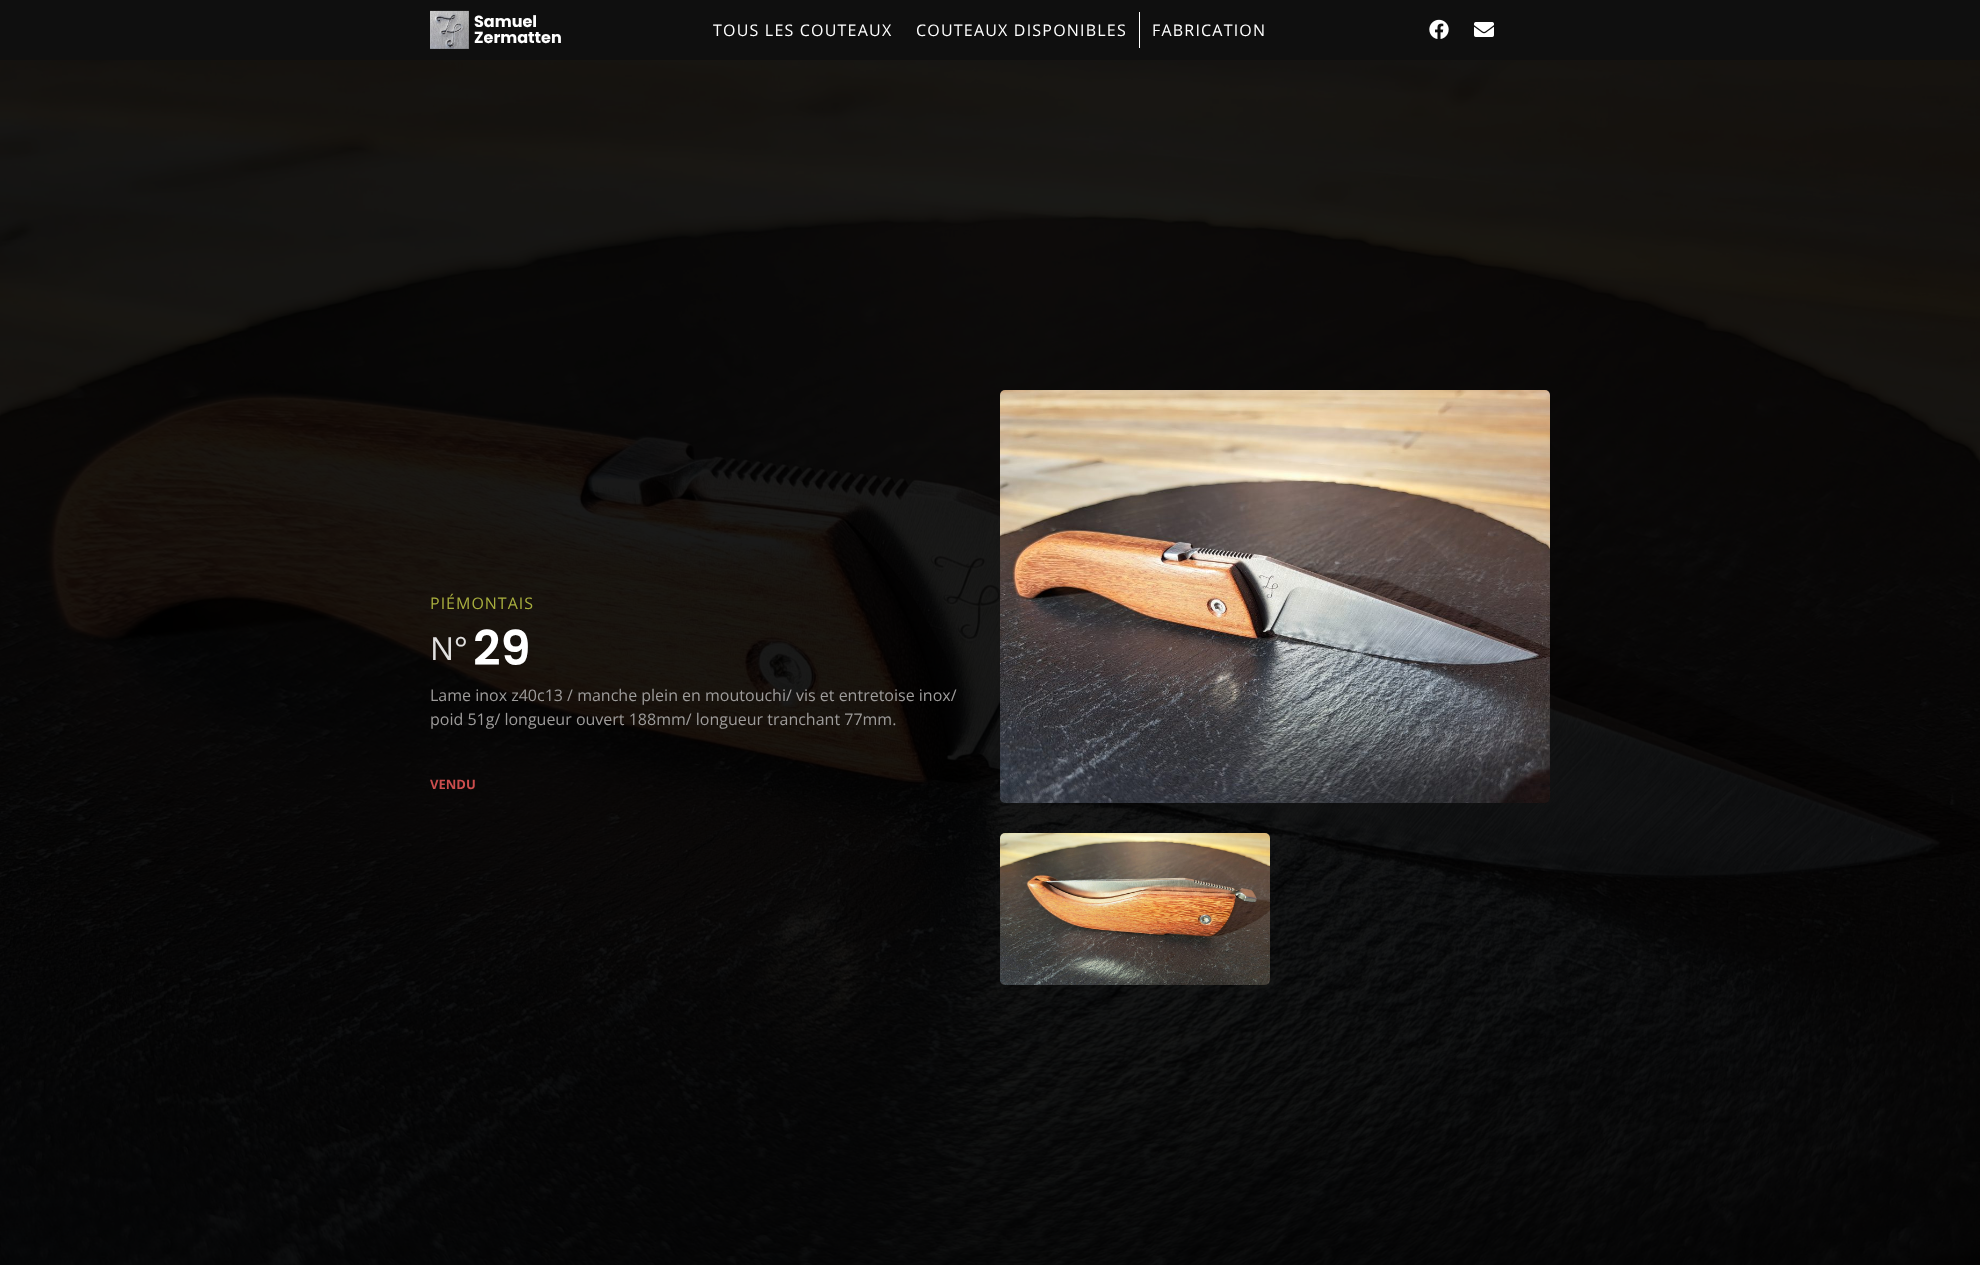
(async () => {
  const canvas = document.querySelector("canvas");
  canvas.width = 1980;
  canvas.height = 1265;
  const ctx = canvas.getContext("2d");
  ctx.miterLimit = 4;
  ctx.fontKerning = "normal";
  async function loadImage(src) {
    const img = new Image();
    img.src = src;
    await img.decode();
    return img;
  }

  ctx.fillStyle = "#0f0f0f";
  ctx.fillRect(0, 0, 1980, 1265);
  ctx.drawImage(await loadImage("img/1.png"), 430, 10, 39, 39);
  ctx.fillStyle = "#ffffff";
  ctx.fillRect(1139, 12, 1, 36);
  ctx.drawImage(await loadImage("img/2.png"), 1429, 19, 20, 20);
  ctx.drawImage(await loadImage("img/3.png"), 1474, 22, 20, 15);
  ctx.drawImage(await loadImage("img/4.png"), 0, 60, 1980, 1205);
  ctx.drawImage(await loadImage("img/5.png"), 1000, 390, 550, 413);
  ctx.drawImage(await loadImage("img/6.png"), 1000, 833, 270, 152);
  ctx.font = "bold 16px Poppins";
  ctx.fillText("Samuel", 474, 27);
  ctx.fillText("Zermatten", 474, 43);
  ctx.letterSpacing = "1.2px";
  ctx.font = "16px Open Sans";
  for (const [text, x, y] of [
    ["TOUS LES COUTEAUX", 713, 36],
    ["COUTEAUX DISPONIBLES", 916, 36],
    ["FABRICATION", 1152, 36],
  ]) {
    ctx.fillText(text, x, y);
  }
  ctx.letterSpacing = "1px";
  ctx.fillStyle = "#a8ae3e";
  ctx.fillText("PIÉMONTAIS", 430, 609);
  ctx.letterSpacing = "0px";
  ctx.font = "32px Open Sans";
  ctx.fillStyle = "#e1e0df";
  ctx.fillText("N°", 430, 660);
  ctx.font = "600 48px Poppins";
  ctx.fillStyle = "#ffffff";
  ctx.fillText("29", 473, 665);
  ctx.font = "16px Open Sans";
  ctx.fillStyle = "#9e9c9b";
  ctx.fillText("Lame inox z40c13 / manche plein en moutouchi/ vis et entretoise inox/", 430, 701);
  ctx.fillText("poid 51g/ longueur ouvert 188mm/ longueur tranchant 77mm.", 430, 725);
  ctx.font = "bold 13px Open Sans";
  ctx.fillStyle = "#cb4d4d";
  ctx.fillText("VENDU", 430, 789);
})();
